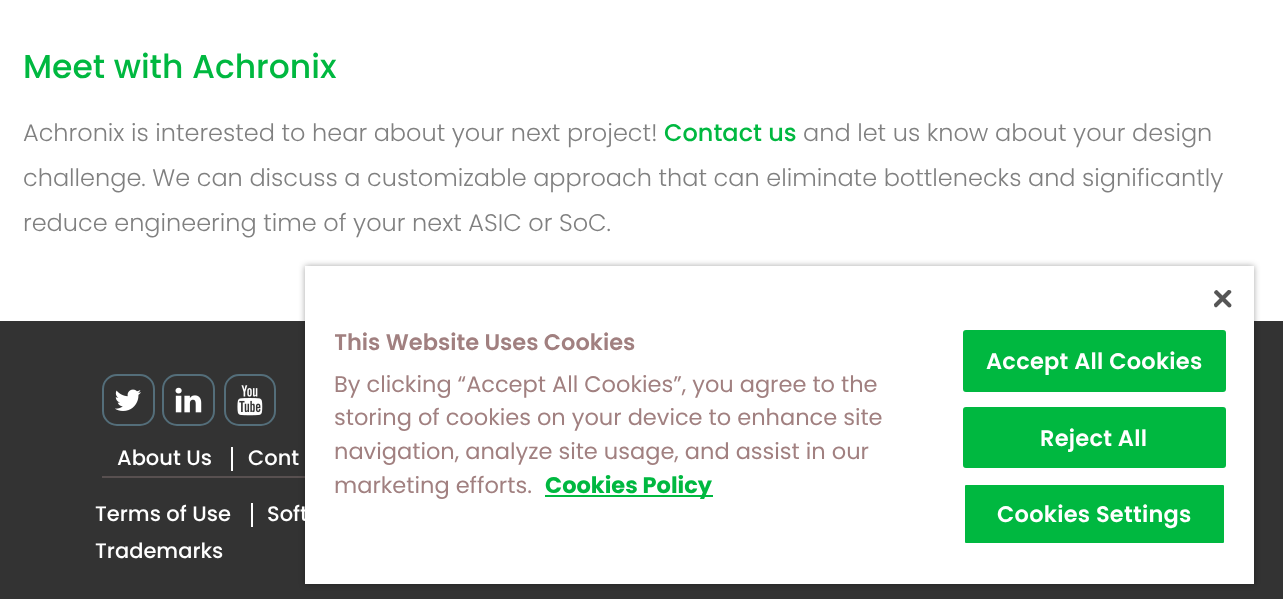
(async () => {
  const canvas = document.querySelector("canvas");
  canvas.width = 1283;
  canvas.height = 613;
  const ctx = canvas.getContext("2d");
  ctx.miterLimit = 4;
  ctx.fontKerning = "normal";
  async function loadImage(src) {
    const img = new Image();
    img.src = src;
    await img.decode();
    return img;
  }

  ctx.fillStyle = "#ffffff";
  ctx.fillRect(0, 0, 1283, 613);
  ctx.fillStyle = "#333333";
  ctx.fillRect(0, 321, 1283, 278);
  ctx.beginPath();
  ctx.roundRect(103, 375, 51, 50, 14);
  ctx.strokeStyle = "#546e7a";
  ctx.lineWidth = 2;
  ctx.stroke();
  ctx.drawImage(await loadImage("img/1.png"), 115, 389, 26, 22);
  ctx.beginPath();
  ctx.roundRect(163, 375, 51, 50, 14);
  ctx.stroke();
  ctx.drawImage(await loadImage("img/2.png"), 175, 387, 27, 26);
  ctx.beginPath();
  ctx.roundRect(225, 375, 50, 50, 14);
  ctx.stroke();
  ctx.drawImage(await loadImage("img/3.png"), 237, 385, 26, 31);
  for (const [x, y, w, h, color] of [
    [231, 447, 2, 24, "#ffffff"],
    [102, 476, 203, 2, "#585050"],
    [251, 503, 2, 24, "#ffffff"],
  ]) {
    ctx.fillStyle = color;
    ctx.fillRect(x, y, w, h);
  }
  ctx.fillStyle = "rgba(0, 0, 0, 0.35)";
  ctx.filter = "blur(3px)";
  ctx.beginPath();
  ctx.rect(305, 266, 949, 318);
  ctx.fill();
  ctx.filter = "none";
  ctx.fillStyle = "#ffffff";
  ctx.fillRect(305, 266, 949, 318);
  ctx.drawImage(await loadImage("img/4.png"), 1214, 290, 18, 18);
  ctx.fillStyle = "#00b840";
  ctx.fillRect(545, 495, 168, 2);
  ctx.beginPath();
  ctx.roundRect(964, 331, 261, 60, 2);
  ctx.fill();
  ctx.strokeStyle = "#00b840";
  ctx.stroke();
  ctx.beginPath();
  ctx.roundRect(964, 408, 261, 59, 2);
  ctx.fill();
  ctx.stroke();
  ctx.beginPath();
  ctx.roundRect(964, 484, 261, 60, 2);
  ctx.fill();
  ctx.strokeStyle = "#ffffff";
  ctx.stroke();
  ctx.font = "500 33px Poppins";
  ctx.fillText("Meet with Achronix", 23, 78);
  ctx.font = "300 24px Poppins";
  ctx.fillStyle = "#808080";
  ctx.fillText("Achronix is interested to hear about your next project!", 23, 141);
  ctx.font = "500 24px Poppins";
  ctx.fillStyle = "#00b840";
  ctx.fillText("Contact us", 664, 141);
  ctx.font = "300 24px Poppins";
  ctx.fillStyle = "#808080";
  for (const [text, x, y] of [
    ["and let us know about your design", 803, 141],
    ["challenge. We can discuss a customizable approach that can eliminate bottlenecks and significantly", 23, 186],
    ["reduce engineering time of your next ASIC or SoC.", 23, 231],
  ]) {
    ctx.fillText(text, x, y);
  }
  ctx.font = "500 21px Poppins";
  ctx.fillStyle = "#ffffff";
  for (const [text, x, y] of [
    ["About Us", 117, 465],
    ["Cont", 248, 465],
    ["Terms of Use", 95, 521],
    ["Soft", 267, 521],
    ["Trademarks", 95, 558],
  ]) {
    ctx.fillText(text, x, y);
  }
  ctx.save();
  ctx.beginPath();
  ctx.rect(335, 330, 567, 173);
  ctx.clip();
  ctx.font = "600 22.5px Poppins";
  ctx.fillStyle = "#a18080";
  ctx.fillText("This Website Uses Cookies", 334, 350);
  ctx.restore();
  ctx.font = "22.5px Poppins";
  ctx.fillStyle = "#a18080";
  for (const [text, x, y] of [
    ["By clicking “Accept All Cookies”, you agree to the", 334, 392],
    ["storing of cookies on your device to enhance site", 334, 425],
    ["navigation, analyze site usage, and assist in our", 334, 459],
    ["marketing efforts.", 334, 493],
  ]) {
    ctx.fillText(text, x, y);
  }
  ctx.font = "bold 22.5px Poppins";
  ctx.fillStyle = "#00b840";
  ctx.fillText("Cookies Policy", 545, 493);
  ctx.letterSpacing = "0.25px";
  ctx.font = "600 22.5px Poppins";
  ctx.fillStyle = "#ffffff";
  for (const [text, x, y] of [
    ["Accept All Cookies", 986, 369],
    ["Reject All", 1040, 446],
    ["Cookies Settings", 997, 522],
  ]) {
    ctx.fillText(text, x, y);
  }
})();
